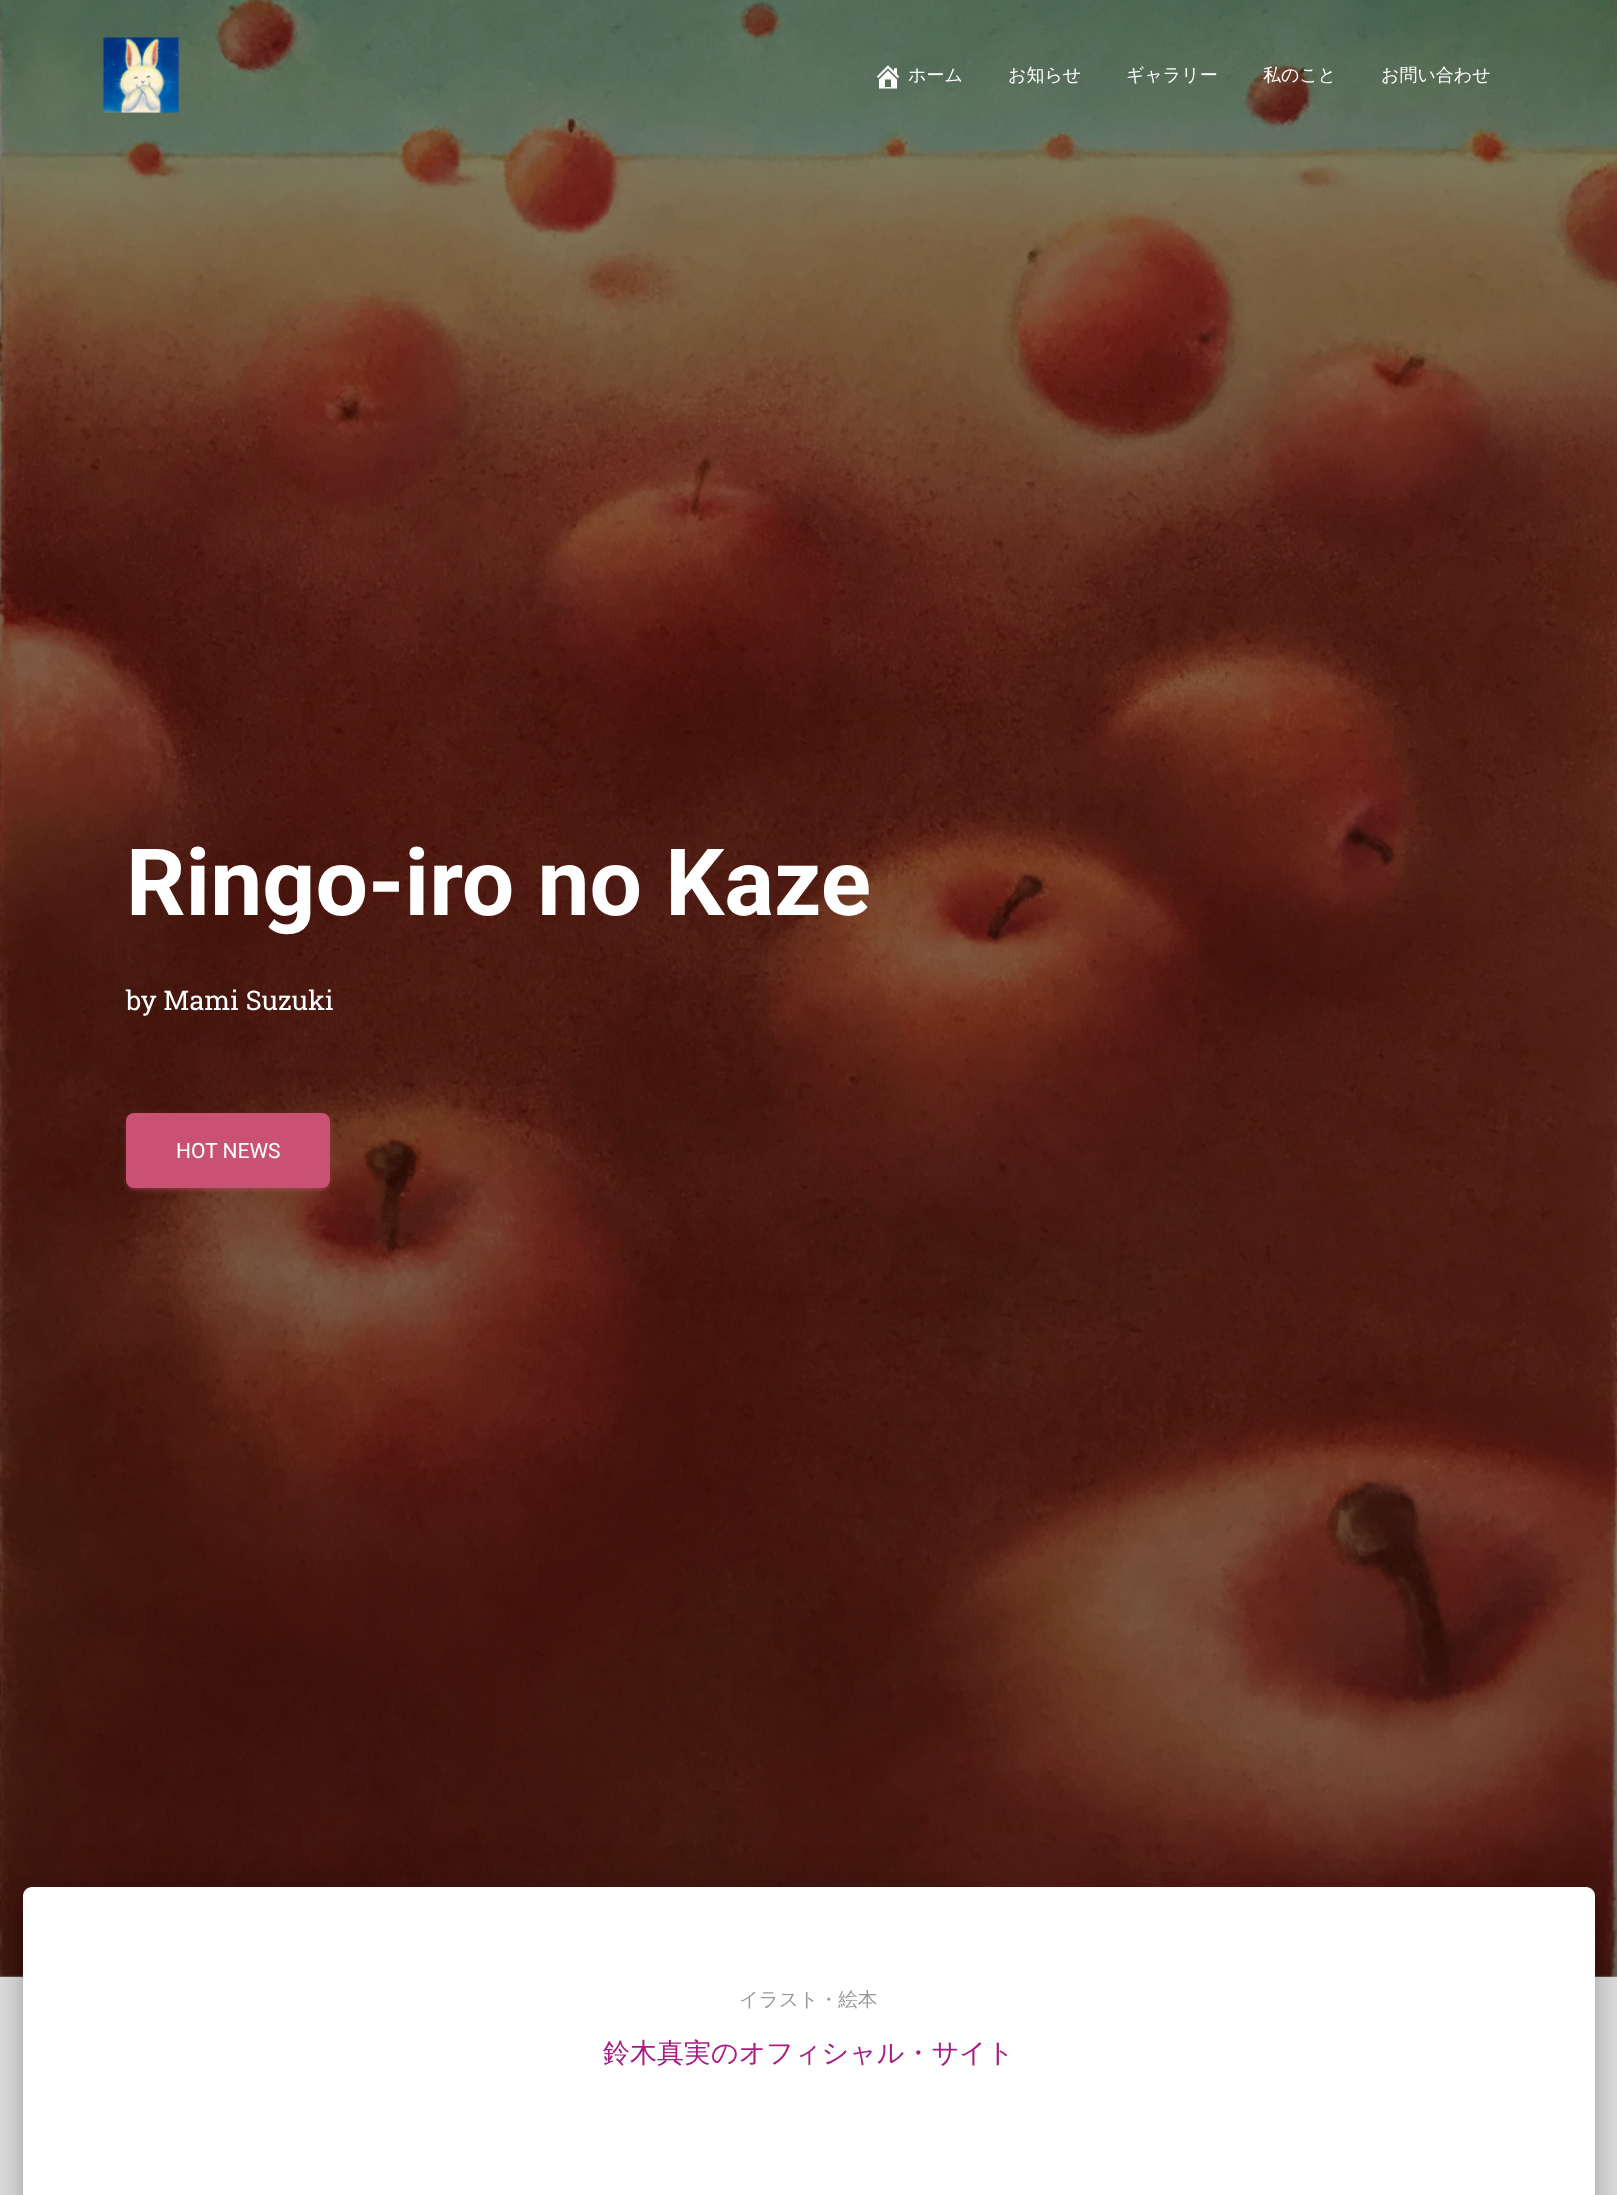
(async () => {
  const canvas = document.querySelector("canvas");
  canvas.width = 1617;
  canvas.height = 2195;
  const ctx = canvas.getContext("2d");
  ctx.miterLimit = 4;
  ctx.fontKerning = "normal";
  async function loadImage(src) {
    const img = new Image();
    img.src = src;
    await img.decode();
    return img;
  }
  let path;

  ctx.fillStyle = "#e5e5e5";
  ctx.fillRect(0, 0, 1617, 2195);
  ctx.drawImage(await loadImage("img/3.png"), 0, 0, 1617, 1977);
  ctx.drawImage(await loadImage("img/1.png"), 103, 37, 76, 76);
  ctx.drawImage(await loadImage("img/2.png"), 876, 65, 24, 24);
  ctx.fillStyle = "rgba(201, 82, 114, 0.12)";
  ctx.filter = "blur(4px)";
  ctx.beginPath();
  ctx.roundRect(126, 1115, 204, 75, 8);
  ctx.fill();
  ctx.filter = "none";
  ctx.fillStyle = "rgba(201, 82, 114, 0.2)";
  ctx.filter = "blur(1px)";
  ctx.beginPath();
  ctx.roundRect(129, 1121, 198, 69, 5);
  ctx.fill();
  ctx.filter = "none";
  ctx.fillStyle = "rgba(201, 82, 114, 0.14)";
  ctx.filter = "blur(1.5px)";
  ctx.beginPath();
  ctx.roundRect(126, 1116, 204, 75, 8);
  ctx.fill();
  ctx.filter = "none";
  ctx.fillStyle = "#c95272";
  ctx.beginPath();
  ctx.roundRect(126, 1113, 204, 75, 8);
  ctx.fill();
  ctx.fillStyle = "rgba(0, 0, 0, 0.2)";
  ctx.filter = "blur(7.5px)";
  ctx.beginPath();
  ctx.roundRect(30, 1907, 1557, 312, 1.5);
  ctx.fill();
  ctx.filter = "none";
  ctx.fillStyle = "rgba(0, 0, 0, 0.12)";
  ctx.filter = "blur(22.5px)";
  ctx.beginPath();
  ctx.roundRect(15, 1889, 1587, 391, 17);
  ctx.fill();
  ctx.filter = "none";
  ctx.fillStyle = "rgba(0, 0, 0, 0.14)";
  ctx.filter = "blur(18px)";
  ctx.beginPath();
  ctx.roundRect(20, 1908, 1578, 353, 12);
  ctx.fill();
  ctx.filter = "none";
  ctx.fillStyle = "#ffffff";
  path = new Path2D("M32 1887H1586C1591 1887 1595 1891 1595 1896V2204H23V1896C23 1891 27 1887 32 1887Z");
  ctx.fill(path);
  ctx.font = "500 18px WenQuanYi Zen Hei";
  for (const [text, x, y] of [
    ["ホーム", 908, 81],
    ["お知らせ", 1008, 81],
    ["ギャラリー", 1126, 81],
    ["私のこと", 1263, 81],
    ["お問い合わせ", 1381, 81],
  ]) {
    ctx.fillText(text, x, y);
  }
  ctx.font = "bold 93px Roboto";
  ctx.fillText("Ringo-iro no Kaze", 126, 915);
  ctx.font = "27px Roboto Slab";
  ctx.fillText("by Mami Suzuki", 126, 1010);
  ctx.font = "21px Roboto";
  ctx.fillText("HOT NEWS", 176, 1158);
  ctx.font = "500 19.5px WenQuanYi Zen Hei";
  ctx.fillStyle = "#999999";
  ctx.fillText("イラスト・絵本", 739, 2006);
  ctx.font = "500 27px WenQuanYi Zen Hei";
  ctx.fillStyle = "#a81d84";
  ctx.fillText("鈴木真実のオフィシャル・サイト", 603, 2062);
})();
